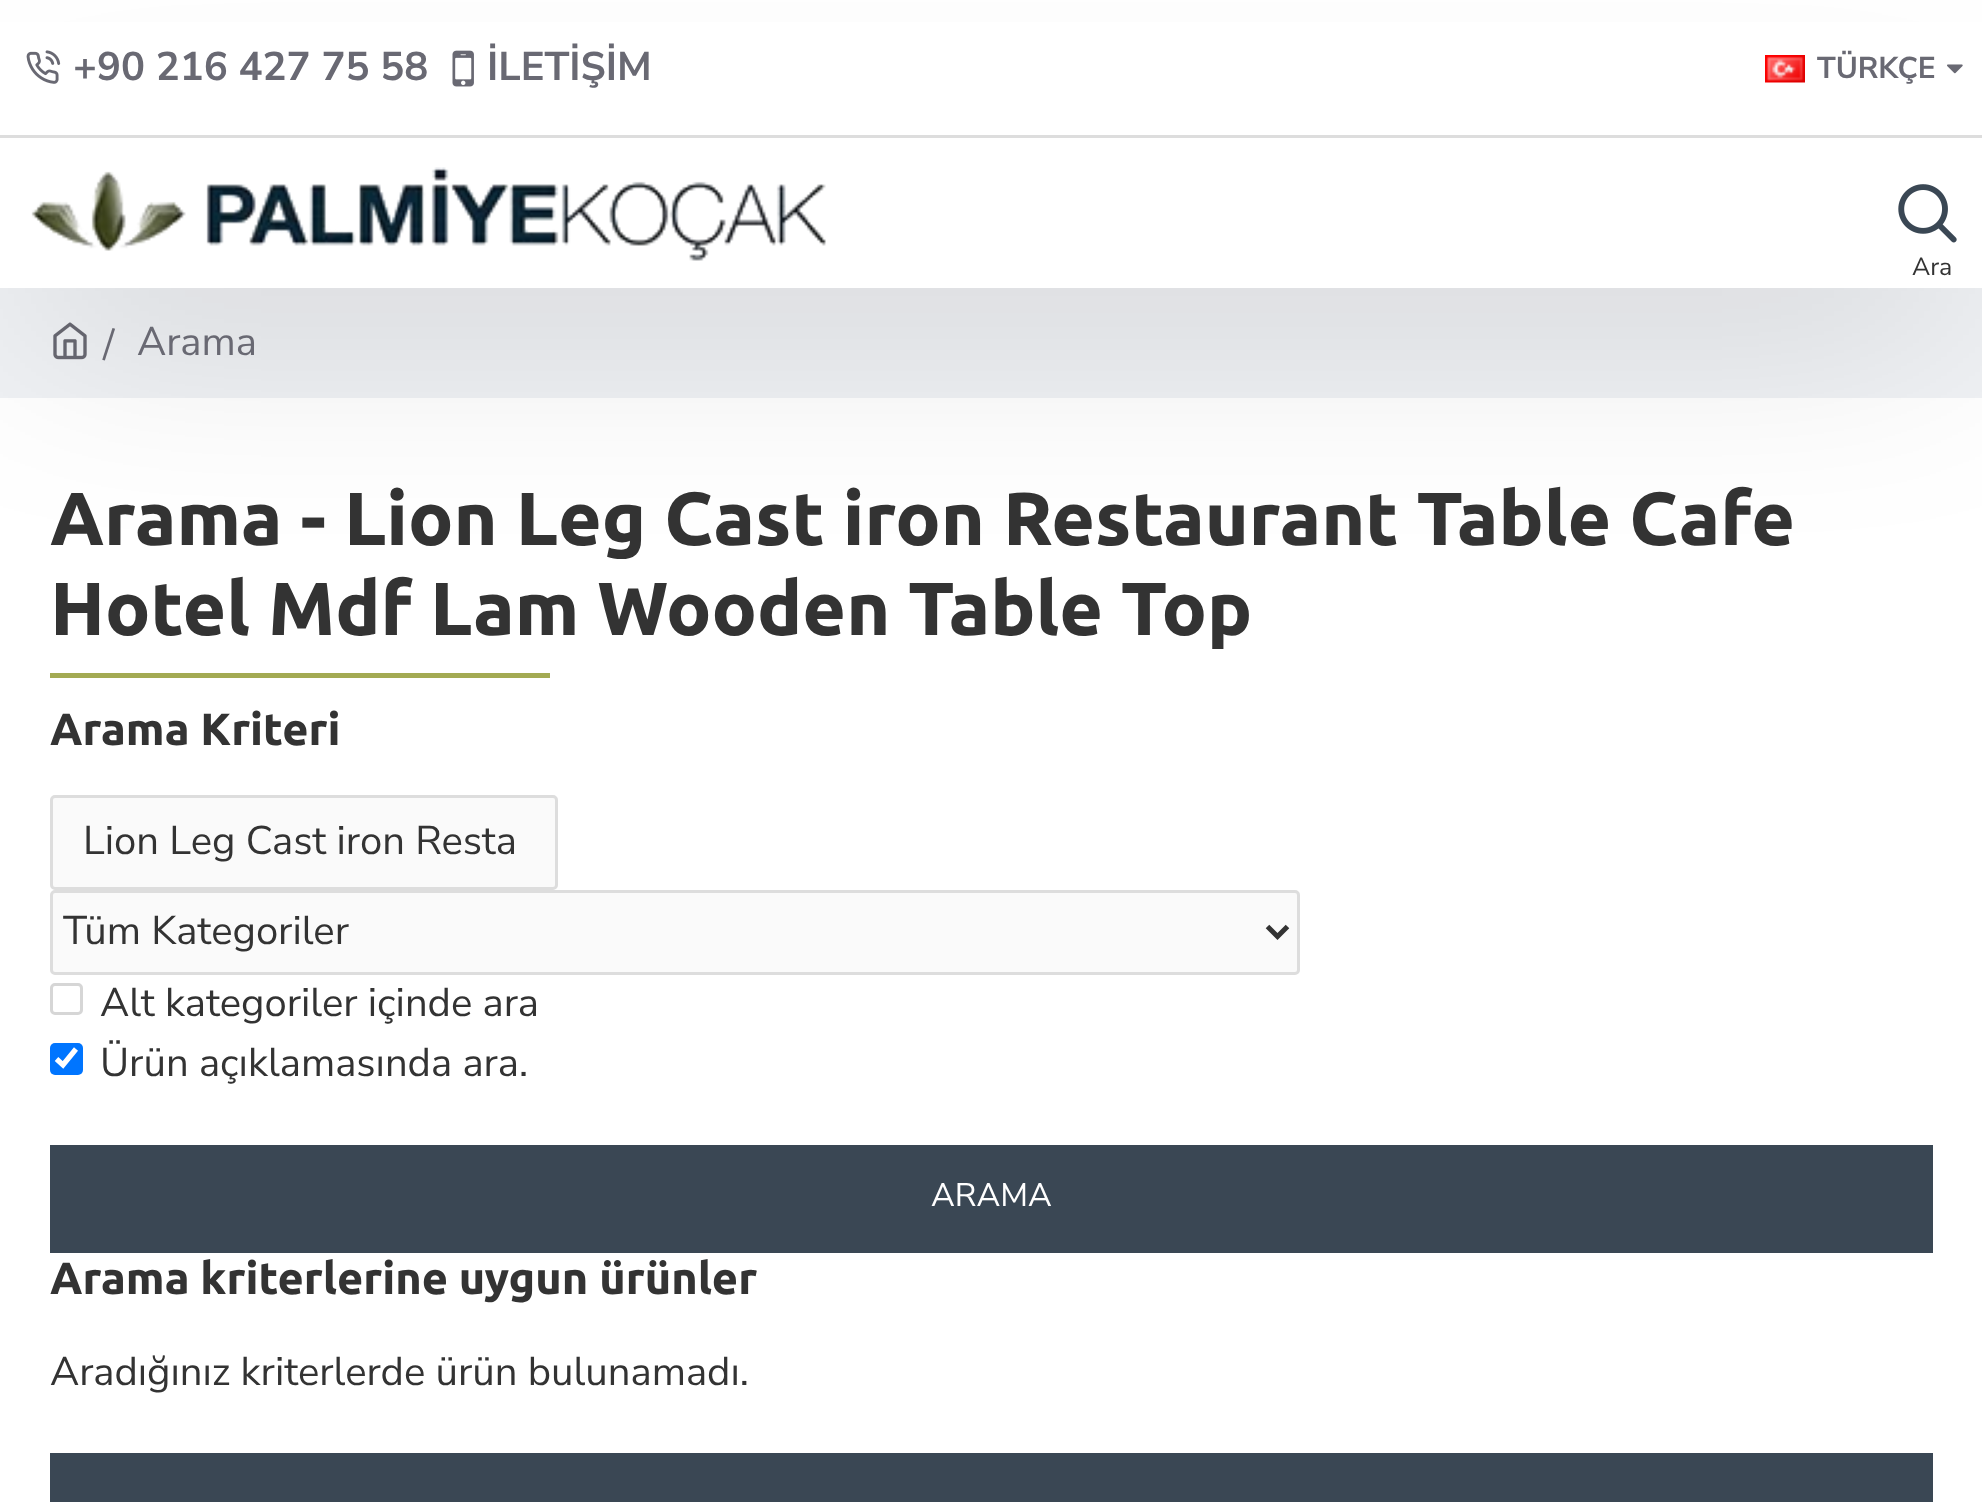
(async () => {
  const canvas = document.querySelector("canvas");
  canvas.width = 1982;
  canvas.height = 1502;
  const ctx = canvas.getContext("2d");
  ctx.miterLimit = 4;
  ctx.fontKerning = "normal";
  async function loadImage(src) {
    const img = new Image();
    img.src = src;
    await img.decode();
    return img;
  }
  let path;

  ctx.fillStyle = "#ffffff";
  ctx.fillRect(0, 0, 1982, 1502);
  ctx.fillStyle = "#f0f2f5";
  ctx.fillRect(0, 288, 1982, 110);
  ctx.drawImage(await loadImage("img/7.png"), 53, 322, 34, 38);
  ctx.fillStyle = "rgba(0, 0, 0, 0.2)";
  ctx.filter = "blur(112.5px)";
  ctx.beginPath();
  ctx.rect(25, 200, 1933, 100);
  ctx.fill();
  ctx.filter = "none";
  ctx.fillStyle = "#ffffff";
  ctx.fillRect(0, 22, 1982, 113);
  ctx.fillStyle = "#dddddd";
  ctx.fillRect(0, 135, 1982, 3);
  ctx.drawImage(await loadImage("img/1.png"), 26, 50, 35, 34);
  ctx.drawImage(await loadImage("img/2.png"), 452, 50, 22, 37);
  ctx.drawImage(await loadImage("img/3.png"), 1765, 55, 40, 28);
  ctx.drawImage(await loadImage("img/4.png"), 1947, 64, 16, 10);
  ctx.fillStyle = "#ffffff";
  ctx.fillRect(0, 138, 1982, 150);
  ctx.drawImage(await loadImage("img/5.png"), 31, 167, 795, 94);
  ctx.drawImage(await loadImage("img/6.png"), 1898, 184, 59, 59);
  ctx.fillStyle = "#a3aa53";
  ctx.fillRect(50, 673, 500, 5);
  ctx.fillStyle = "#fafafa";
  ctx.beginPath();
  ctx.roundRect(51.5, 796.5, 505, 92, 3.5);
  ctx.fill();
  ctx.strokeStyle = "#dddddd";
  ctx.lineWidth = 3;
  ctx.stroke();
  ctx.beginPath();
  ctx.roundRect(51.5, 891.5, 1247, 82, 3.5);
  ctx.fill();
  ctx.stroke();
  path = new Path2D("M1267.5 926.5L1277.5 936.5L1287.5 926.5");
  ctx.strokeStyle = "#333333";
  ctx.lineWidth = 5;
  ctx.stroke(path);
  ctx.beginPath();
  ctx.roundRect(51.5, 984.5, 30, 29, 3.5);
  ctx.strokeStyle = "#d6d6d6";
  ctx.lineWidth = 3;
  ctx.stroke();
  ctx.fillStyle = "#0075ff";
  ctx.beginPath();
  ctx.roundRect(50, 1043, 33, 32, 5);
  ctx.fill();
  path = new Path2D("M56.5 1059L63 1065L76 1049");
  ctx.strokeStyle = "#ffffff";
  ctx.lineWidth = 5.2;
  ctx.stroke(path);
  ctx.fillStyle = "#3a4754";
  ctx.fillRect(50, 1145, 1883, 108);
  ctx.fillRect(50, 1453, 1883, 49);
  ctx.font = "bold 40px Nunito Sans";
  ctx.fillStyle = "#696973";
  ctx.fillText("+90 216 427 75 58", 73, 80);
  ctx.fillText("İLETİŞİM", 487, 80);
  ctx.font = "bold 30px Nunito Sans";
  ctx.fillText("TÜRKÇE", 1817, 78);
  ctx.font = "25px Nunito Sans";
  ctx.fillStyle = "#333333";
  ctx.fillText("Ara", 1912, 275);
  ctx.font = "40px Nunito Sans";
  ctx.fillStyle = "#696973";
  ctx.fillText("/", 103, 358);
  ctx.fillText("Arama", 137, 355);
  ctx.font = "bold 75px Ubuntu";
  ctx.fillStyle = "#333333";
  ctx.fillText("Arama - Lion Leg Cast iron Restaurant Table Cafe", 50, 545);
  ctx.fillText("Hotel Mdf Lam Wooden Table Top", 50, 635);
  ctx.font = "bold 45px Ubuntu";
  ctx.fillText("Arama Kriteri", 50, 745);
  ctx.font = "40px Nunito Sans";
  ctx.fillText("Lion Leg Cast iron Resta", 83, 854);
  ctx.save();
  ctx.beginPath();
  ctx.rect(63, 903, 1195, 60);
  ctx.clip();
  ctx.fillText("Tüm Kategoriler", 63, 944);
  ctx.restore();
  ctx.fillText("Alt kategoriler içinde ara", 100, 1016);
  ctx.fillText("Ürün açıklamasında ara.", 100, 1076);
  ctx.font = "32.5px Nunito Sans";
  ctx.fillStyle = "#ffffff";
  ctx.fillText("ARAMA", 931, 1206);
  ctx.font = "bold 45px Ubuntu";
  ctx.fillStyle = "#333333";
  ctx.fillText("Arama kriterlerine uygun ürünler", 50, 1294);
  ctx.font = "40px Nunito Sans";
  ctx.fillText("Aradığınız kriterlerde ürün bulunamadı.", 50, 1385);
})();
